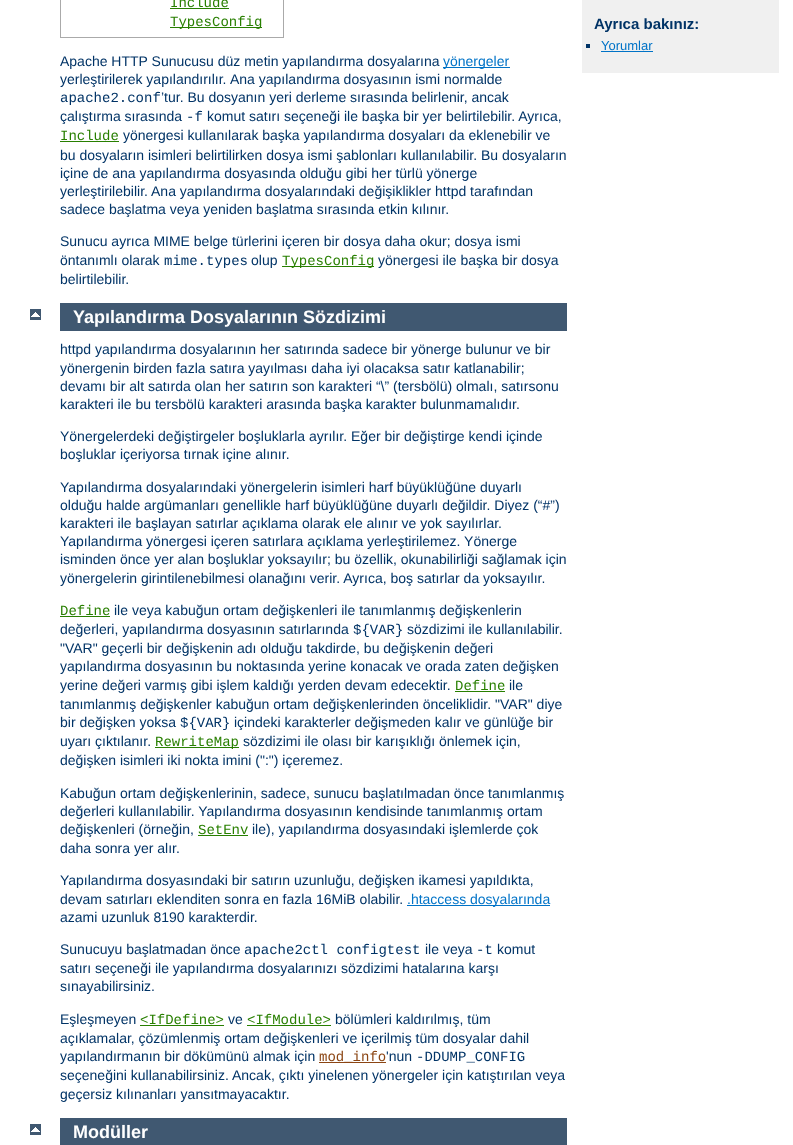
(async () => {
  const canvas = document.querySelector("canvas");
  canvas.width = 793;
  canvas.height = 1145;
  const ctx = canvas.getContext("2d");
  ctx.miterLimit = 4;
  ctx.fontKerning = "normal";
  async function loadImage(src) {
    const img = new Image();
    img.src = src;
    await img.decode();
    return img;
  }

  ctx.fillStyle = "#ffffff";
  ctx.fillRect(0, 0, 793, 1145);
  ctx.strokeStyle = "#aaaaaa";
  ctx.strokeRect(60.5, -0.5, 223, 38);
  for (const [x, y, w, h, color] of [
    [170, 8, 59, 1, "#287f00"],
    [170, 27, 92, 1, "#287f00"],
    [443, 67, 67, 1, "#0073c7"],
    [60, 141, 59, 1, "#287f00"],
    [282, 266, 92, 1, "#287f00"],
    [582, 0, 197, 73, "#f0f0f0"],
    [586, 44, 4, 4, "#003366"],
    [601, 51, 52, 1, "#0073c7"],
  ]) {
    ctx.fillStyle = color;
    ctx.fillRect(x, y, w, h);
  }
  ctx.drawImage(await loadImage("img/1.png"), 30, 309, 11, 11);
  for (const [x, y, w, h, color] of [
    [60, 303, 507, 28, "#405871"],
    [60, 616, 50, 1, "#287f00"],
    [455, 691, 50, 1, "#287f00"],
    [155, 747, 84, 1, "#287f00"],
    [198, 835, 50, 1, "#287f00"],
    [407, 905, 143, 1, "#0073c7"],
    [140, 1025, 84, 1, "#287f00"],
    [247, 1025, 84, 1, "#287f00"],
    [319, 1062, 67, 1, "#8b4513"],
  ]) {
    ctx.fillStyle = color;
    ctx.fillRect(x, y, w, h);
  }
  ctx.drawImage(await loadImage("img/1.png"), 30, 1124, 11, 11);
  ctx.fillStyle = "#405871";
  ctx.fillRect(60, 1118, 507, 27);
  ctx.font = "14px Liberation Mono";
  ctx.fillStyle = "#287f00";
  ctx.fillText("Include", 170, 7);
  ctx.fillText("TypesConfig", 170, 26);
  ctx.font = "14px Liberation Sans";
  ctx.fillStyle = "#003366";
  ctx.fillText("Apache HTTP Sunucusu düz metin yapılandırma dosyalarına", 60, 66);
  ctx.fillStyle = "#0073c7";
  ctx.fillText("yönergeler", 443, 66);
  ctx.fillStyle = "#003366";
  ctx.fillText("yerleştirilerek yapılandırılır.", 60, 84);
  ctx.fillText("Ana yapılandırma dosyasının ismi normalde", 230, 84);
  ctx.font = "14px Liberation Mono";
  ctx.fillText("apache2.conf", 60, 102);
  ctx.font = "14px Liberation Sans";
  ctx.fillText("’tur. Bu dosyanın yeri derleme sırasında belirlenir, ancak", 161, 102);
  ctx.fillText("çalıştırma sırasında", 60, 121);
  ctx.font = "14px Liberation Mono";
  ctx.fillText("-f", 186, 121);
  ctx.font = "14px Liberation Sans";
  ctx.fillText("komut satırı seçeneği ile başka bir yer belirtilebilir. Ayrıca,", 207, 121);
  ctx.font = "14px Liberation Mono";
  ctx.fillStyle = "#287f00";
  ctx.fillText("Include", 60, 140);
  ctx.font = "14px Liberation Sans";
  ctx.fillStyle = "#003366";
  for (const [text, x, y] of [
    ["yönergesi kullanılarak başka yapılandırma dosyaları da eklenebilir ve", 123, 140],
    ["bu dosyaların isimleri belirtilirken dosya ismi şablonları kullanılabilir. Bu dosyaların", 60, 160],
    ["içine de ana yapılandırma dosyasında olduğu gibi her türlü yönerge", 60, 178],
    ["yerleştirilebilir. Ana yapılandırma dosyalarındaki değişiklikler httpd tarafından", 60, 196],
    ["sadece başlatma veya yeniden başlatma sırasında etkin kılınır.", 60, 214],
    ["Sunucu ayrıca MIME belge türlerini içeren bir dosya daha okur; dosya ismi", 60, 246],
    ["öntanımlı olarak", 60, 265],
  ]) {
    ctx.fillText(text, x, y);
  }
  ctx.font = "14px Liberation Mono";
  ctx.fillText("mime.types", 164, 265);
  ctx.font = "14px Liberation Sans";
  ctx.fillText("olup", 251, 265);
  ctx.font = "14px Liberation Mono";
  ctx.fillStyle = "#287f00";
  ctx.fillText("TypesConfig", 282, 265);
  ctx.font = "14px Liberation Sans";
  ctx.fillStyle = "#003366";
  ctx.fillText("yönergesi ile başka bir dosya", 378, 265);
  ctx.fillText("belirtilebilir.", 60, 284);
  ctx.font = "bold 15px Liberation Sans";
  ctx.fillText("Ayrıca bakınız:", 594, 29);
  ctx.font = "13px Liberation Sans";
  ctx.fillStyle = "#0073c7";
  ctx.fillText("Yorumlar", 601, 50);
  ctx.font = "bold 18px Liberation Sans";
  ctx.fillStyle = "#ffffff";
  ctx.fillText("Yapılandırma Dosyalarının Sözdizimi", 73, 323);
  ctx.font = "14px Liberation Sans";
  ctx.fillStyle = "#003366";
  for (const [text, x, y] of [
    ["httpd yapılandırma dosyalarının her satırında sadece bir yönerge bulunur ve bir", 60, 354],
    ["yönergenin birden fazla satıra yayılması daha iyi olacaksa satır katlanabilir;", 60, 373],
    ["devamı bir alt satırda olan her satırın son karakteri “\\” (tersbölü) olmalı, satırsonu", 60, 391],
    ["karakteri ile bu tersbölü karakteri arasında başka karakter bulunmamalıdır.", 60, 409],
    ["Yönergelerdeki değiştirgeler boşluklarla ayrılır. Eğer bir değiştirge kendi içinde", 60, 441],
    ["boşluklar içeriyorsa tırnak içine alınır.", 60, 459],
    ["Yapılandırma dosyalarındaki yönergelerin isimleri harf büyüklüğüne duyarlı", 60, 492],
    ["olduğu halde argümanları genellikle harf büyüklüğüne duyarlı değildir. Diyez (“#”)", 60, 510],
    ["karakteri ile başlayan satırlar açıklama olarak ele alınır ve yok sayılırlar.", 60, 528],
    ["Yapılandırma yönergesi içeren satırlara açıklama yerleştirilemez. Yönerge", 60, 546],
    ["isminden önce yer alan boşluklar yoksayılır; bu özellik, okunabilirliği sağlamak için", 60, 564],
    ["yönergelerin girintilenebilmesi olanağını verir. Ayrıca, boş satırlar da yoksayılır.", 60, 583],
  ]) {
    ctx.fillText(text, x, y);
  }
  ctx.font = "14px Liberation Mono";
  ctx.fillStyle = "#287f00";
  ctx.fillText("Define", 60, 615);
  ctx.font = "14px Liberation Sans";
  ctx.fillStyle = "#003366";
  ctx.fillText("ile veya kabuğun ortam değişkenleri ile tanımlanmış değişkenlerin", 114, 615);
  ctx.fillText("değerleri, yapılandırma dosyasının satırlarında", 60, 634);
  ctx.font = "14px Liberation Mono";
  ctx.fillText("${VAR}", 353, 634);
  ctx.font = "14px Liberation Sans";
  for (const [text, x, y] of [
    ["sözdizimi ile kullanılabilir.", 407, 634],
    ["\"VAR\" geçerli bir değişkenin adı olduğu takdirde, bu değişkenin değeri", 60, 653],
    ["yapılandırma dosyasının bu noktasında yerine konacak ve orada zaten değişken", 60, 671],
    ["yerine değeri varmış gibi işlem kaldığı yerden devam edecektir.", 60, 690],
  ]) {
    ctx.fillText(text, x, y);
  }
  ctx.font = "14px Liberation Mono";
  ctx.fillStyle = "#287f00";
  ctx.fillText("Define", 455, 690);
  ctx.font = "14px Liberation Sans";
  ctx.fillStyle = "#003366";
  for (const [text, x, y] of [
    ["ile", 509, 690],
    ["tanımlanmış değişkenler kabuğun ortam değişkenlerinden önceliklidir. \"VAR\" diye", 60, 709],
    ["bir değişken yoksa", 60, 727],
  ]) {
    ctx.fillText(text, x, y);
  }
  ctx.font = "14px Liberation Mono";
  ctx.fillText("${VAR}", 180, 727);
  ctx.font = "14px Liberation Sans";
  ctx.fillText("içindeki karakterler değişmeden kalır ve günlüğe bir", 234, 727);
  ctx.fillText("uyarı çıktılanır.", 60, 746);
  ctx.font = "14px Liberation Mono";
  ctx.fillStyle = "#287f00";
  ctx.fillText("RewriteMap", 155, 746);
  ctx.font = "14px Liberation Sans";
  ctx.fillStyle = "#003366";
  for (const [text, x, y] of [
    ["sözdizimi ile olası bir karışıklığı önlemek için,", 243, 746],
    ["değişken isimleri iki nokta imini (\":\") içeremez.", 60, 765],
    ["Kabuğun ortam değişkenlerinin, sadece, sunucu başlatılmadan önce tanımlanmış", 60, 798],
    ["değerleri kullanılabilir. Yapılandırma dosyasının kendisinde tanımlanmış ortam", 60, 816],
    ["değişkenleri (örneğin,", 60, 834],
  ]) {
    ctx.fillText(text, x, y);
  }
  ctx.font = "14px Liberation Mono";
  ctx.fillStyle = "#287f00";
  ctx.fillText("SetEnv", 198, 834);
  ctx.font = "14px Liberation Sans";
  ctx.fillStyle = "#003366";
  for (const [text, x, y] of [
    ["ile), yapılandırma dosyasındaki işlemlerde çok", 252, 834],
    ["daha sonra yer alır.", 60, 853],
    ["Yapılandırma dosyasındaki bir satırın uzunluğu, değişken ikamesi yapıldıkta,", 60, 885],
    ["devam satırları eklenditen sonra en fazla 16MiB olabilir.", 60, 904],
  ]) {
    ctx.fillText(text, x, y);
  }
  ctx.fillStyle = "#0073c7";
  ctx.fillText(".htaccess dosyalarında", 407, 904);
  ctx.fillStyle = "#003366";
  ctx.fillText("azami uzunluk 8190 karakterdir.", 60, 922);
  ctx.fillText("Sunucuyu başlatmadan önce", 60, 954);
  ctx.font = "14px Liberation Mono";
  ctx.fillText("apache2ctl configtest", 244, 954);
  ctx.font = "14px Liberation Sans";
  ctx.fillText("ile veya", 425, 954);
  ctx.font = "14px Liberation Mono";
  ctx.fillText("-t", 476, 954);
  ctx.font = "14px Liberation Sans";
  for (const [text, x, y] of [
    ["komut", 497, 954],
    ["satırı seçeneği ile yapılandırma dosyalarınızı sözdizimi hatalarına karşı", 60, 973],
    ["sınayabilirsiniz.", 60, 991],
    ["Eşleşmeyen", 60, 1024],
  ]) {
    ctx.fillText(text, x, y);
  }
  ctx.font = "14px Liberation Mono";
  ctx.fillStyle = "#287f00";
  ctx.fillText("<IfDefine>", 140, 1024);
  ctx.font = "14px Liberation Sans";
  ctx.fillStyle = "#003366";
  ctx.fillText("ve", 228, 1024);
  ctx.font = "14px Liberation Mono";
  ctx.fillStyle = "#287f00";
  ctx.fillText("<IfModule>", 247, 1024);
  ctx.font = "14px Liberation Sans";
  ctx.fillStyle = "#003366";
  for (const [text, x, y] of [
    ["bölümleri kaldırılmış, tüm", 335, 1024],
    ["açıklamalar, çözümlenmiş ortam değişkenleri ve içerilmiş tüm dosyalar dahil", 60, 1043],
    ["yapılandırmanın bir dökümünü almak için", 60, 1061],
  ]) {
    ctx.fillText(text, x, y);
  }
  ctx.font = "14px Liberation Mono";
  ctx.fillStyle = "#8b4513";
  ctx.fillText("mod_info", 319, 1061);
  ctx.font = "14px Liberation Sans";
  ctx.fillStyle = "#003366";
  ctx.fillText("'nun", 386, 1061);
  ctx.font = "14px Liberation Mono";
  ctx.fillText("-DDUMP_CONFIG", 416, 1061);
  ctx.font = "14px Liberation Sans";
  ctx.fillText("seçeneğini kullanabilirsiniz. Ancak, çıktı yinelenen yönergeler için katıştırılan veya", 60, 1080);
  ctx.fillText("geçersiz kılınanları yansıtmayacaktır.", 60, 1099);
  ctx.font = "bold 18px Liberation Sans";
  ctx.fillStyle = "#ffffff";
  ctx.fillText("Modüller", 73, 1138);
})();
